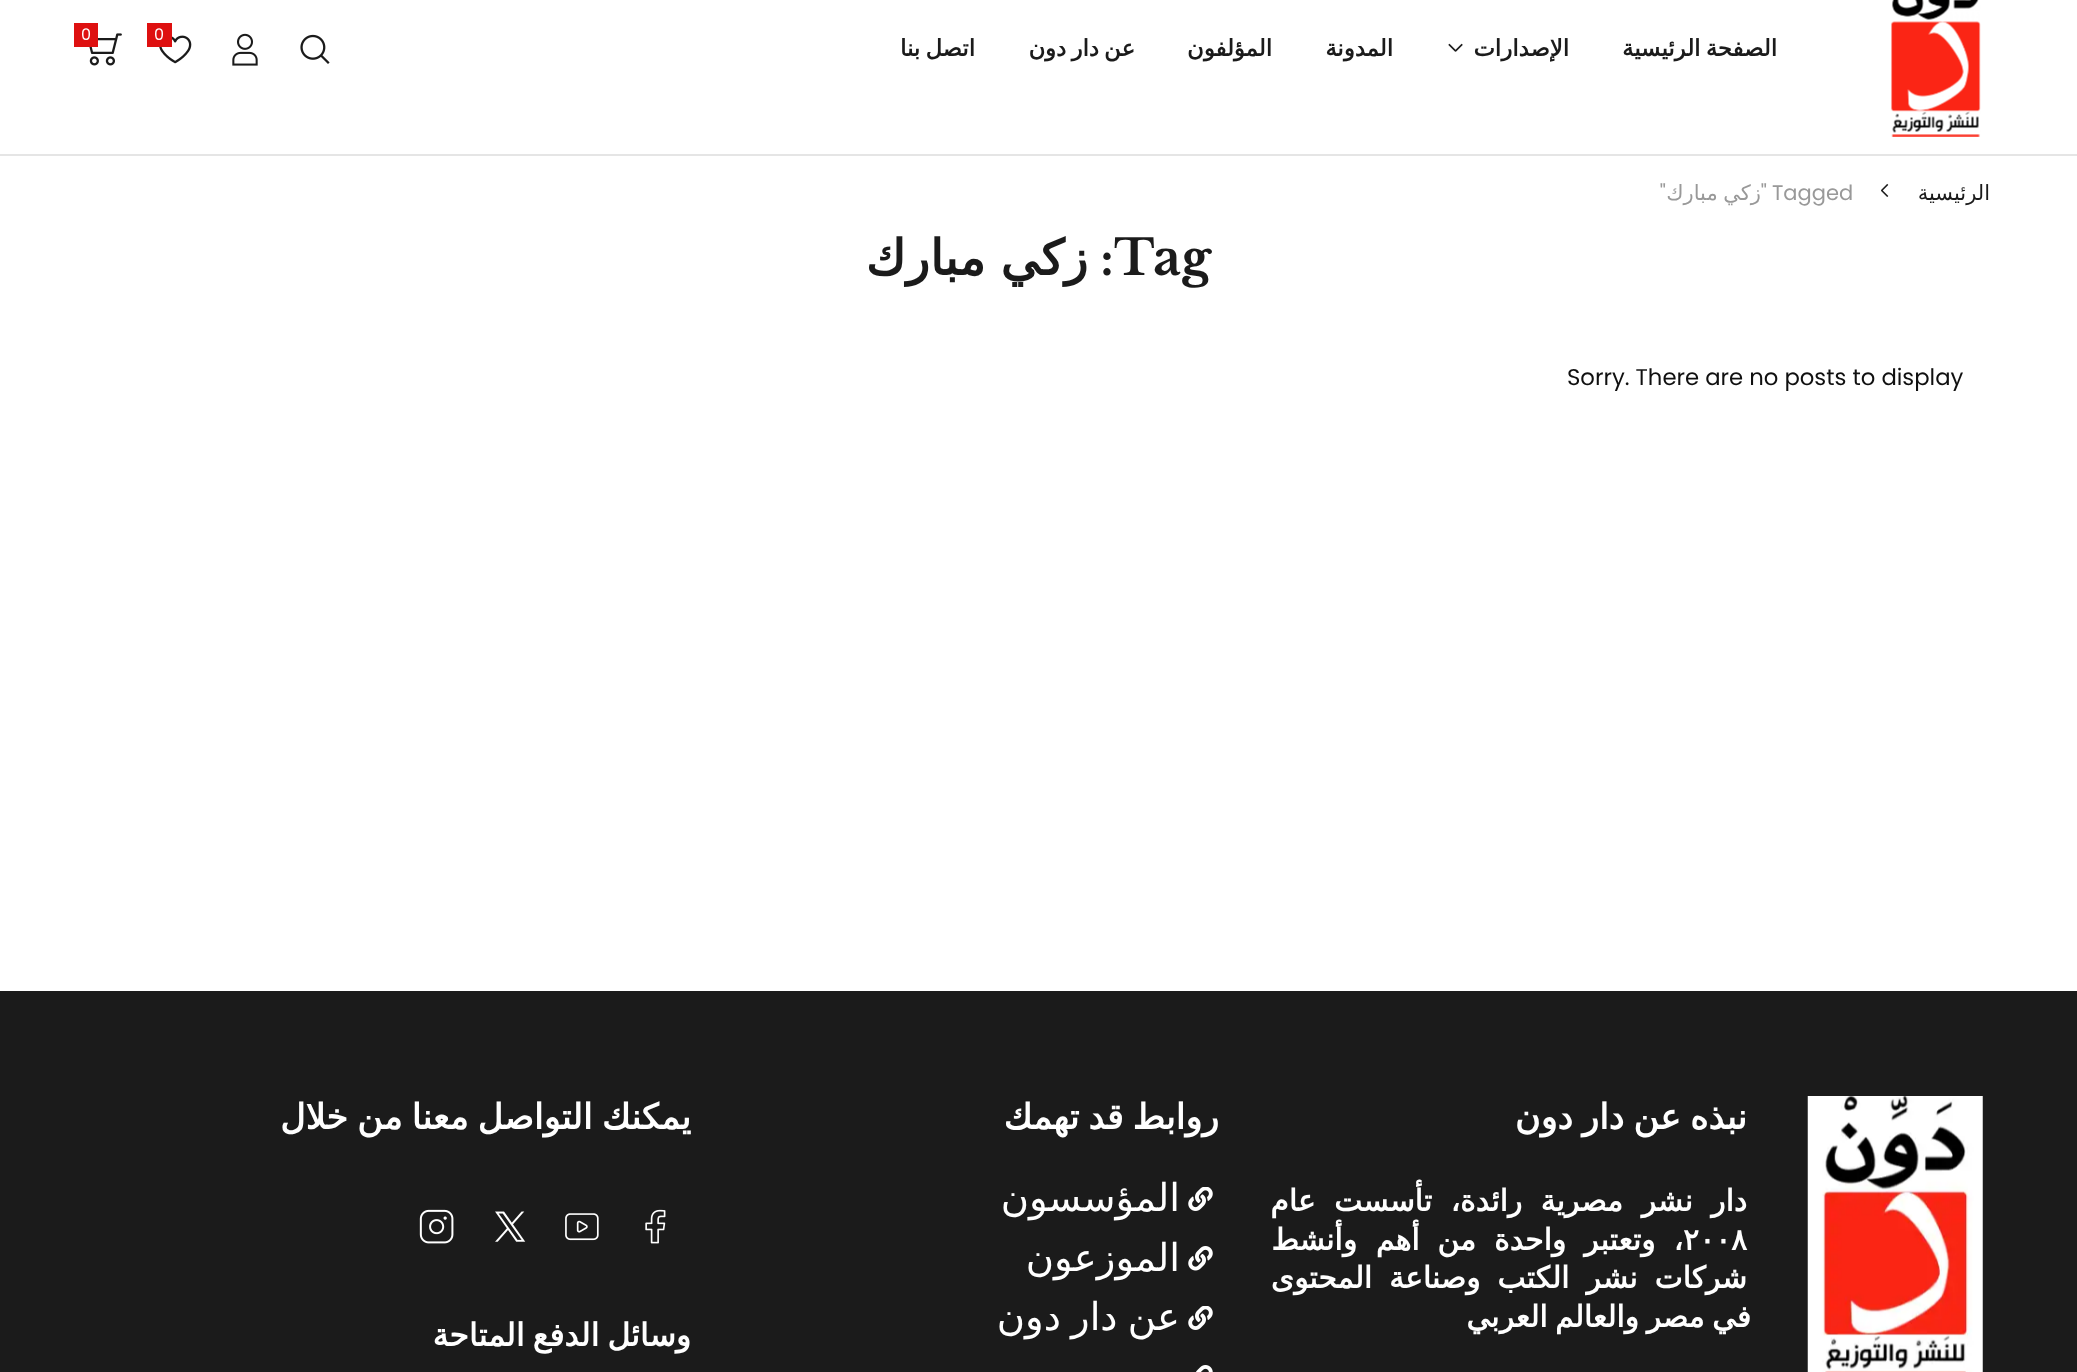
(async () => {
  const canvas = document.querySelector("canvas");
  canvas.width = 2077;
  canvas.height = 1372;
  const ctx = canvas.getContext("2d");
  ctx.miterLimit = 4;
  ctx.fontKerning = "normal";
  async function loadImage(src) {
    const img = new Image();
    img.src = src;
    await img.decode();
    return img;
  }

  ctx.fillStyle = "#ffffff";
  ctx.fillRect(0, 0, 2077, 1372);
  ctx.fillStyle = "#e5e5e5";
  ctx.fillRect(0, 154, 2077, 2);
  ctx.drawImage(await loadImage("img/1.png"), 1891, 0, 90, 137);
  ctx.drawImage(await loadImage("img/2.png"), 300, 34, 30, 30);
  ctx.drawImage(await loadImage("img/3.png"), 232, 33, 26, 33);
  ctx.drawImage(await loadImage("img/4.png"), 159, 35, 33, 29);
  ctx.fillStyle = "#de1010";
  ctx.fillRect(147, 23, 25, 24);
  ctx.drawImage(await loadImage("img/5.png"), 89, 33, 33, 33);
  ctx.fillRect(74, 23, 24, 24);
  ctx.drawImage(await loadImage("img/6.png"), 1448, 43, 15, 9);
  ctx.drawImage(await loadImage("img/7.png"), 1881, 183, 8, 14);
  ctx.fillStyle = "#1b1b1b";
  ctx.fillRect(0, 991, 2077, 381);
  ctx.drawImage(await loadImage("img/8.png"), 1807, 1096, 176, 276);
  ctx.drawImage(await loadImage("img/9.png"), 1188, 1187, 25, 24);
  ctx.drawImage(await loadImage("img/10.png"), 1188, 1246, 25, 25);
  ctx.drawImage(await loadImage("img/9.png"), 1188, 1306, 25, 24);
  ctx.drawImage(await loadImage("img/11.png"), 1196, 1365, 17, 7);
  ctx.drawImage(await loadImage("img/12.png"), 645, 1209, 21, 35);
  ctx.drawImage(await loadImage("img/13.png"), 565, 1213, 34, 28);
  ctx.drawImage(await loadImage("img/14.png"), 495, 1211, 31, 31);
  ctx.drawImage(await loadImage("img/15.png"), 419, 1209, 35, 35);
  ctx.font = "16px Poppins";
  ctx.fillStyle = "#ffffff";
  ctx.fillText("0", 154, 40);
  ctx.fillText("0", 81, 40);
  ctx.wordSpacing = "-2px";
  ctx.direction = "rtl";
  ctx.font = "bold 22.75px DejaVu Sans";
  ctx.fillStyle = "#1b1b1b";
  ctx.fillText("الصفحة الرئيسية", 1777, 56);
  ctx.wordSpacing = "0px";
  for (const [text, x, y] of [
    ["الإصدارات", 1569, 56],
    ["المدونة", 1393, 56],
    ["المؤلفون", 1272, 56],
  ]) {
    ctx.fillText(text, x, y);
  }
  ctx.wordSpacing = "-2px";
  ctx.fillText("عن دار دون", 1135, 56);
  ctx.fillText("اتصل بنا", 975, 56);
  ctx.wordSpacing = "0px";
  ctx.font = "21px DejaVu Sans";
  ctx.fillText("الرئيسية", 1990, 200);
  ctx.direction = "ltr";
  ctx.font = "21px Poppins";
  ctx.fillStyle = "#999999";
  ctx.fillText("Tagged", 1772, 200);
  ctx.direction = "rtl";
  ctx.fillText("\"", 1767, 200);
  ctx.wordSpacing = "-1px";
  ctx.font = "21px DejaVu Sans";
  ctx.fillText("زكي مبارك", 1761, 200);
  ctx.wordSpacing = "0px";
  ctx.font = "21px Poppins";
  ctx.fillText("\"", 1666, 200);
  ctx.direction = "ltr";
  ctx.font = "bold 49px Libre Baskerville";
  ctx.fillStyle = "#1b1b1b";
  ctx.fillText("Tag", 1114, 275);
  ctx.direction = "rtl";
  ctx.fillText(":", 1114, 275);
  ctx.wordSpacing = "-1px";
  ctx.font = "bold 49px DejaVu Sans";
  ctx.fillText("زكي مبارك", 1088, 275);
  ctx.wordSpacing = "0px";
  ctx.direction = "ltr";
  ctx.font = "22.75px Poppins";
  ctx.fillStyle = "#101010";
  ctx.fillText("Sorry. There are no posts to display", 1567, 385);
  ctx.wordSpacing = "-2px";
  ctx.direction = "rtl";
  ctx.font = "bold 35px DejaVu Sans";
  ctx.fillStyle = "#ffffff";
  ctx.fillText("نبذه عن دار دون", 1747, 1129);
  ctx.wordSpacing = "9px";
  ctx.font = "bold 29.75px DejaVu Sans";
  ctx.fillText("دار نشر مصرية رائدة، تأسست عام", 1747, 1211);
  ctx.wordSpacing = "0px";
  ctx.direction = "ltr";
  ctx.fillText("٢٠٠٨", 1683, 1250);
  ctx.wordSpacing = "8.5px";
  ctx.direction = "rtl";
  ctx.fillText("، وتعتبر واحدة من أهم", 1683, 1250);
  ctx.wordSpacing = "0px";
  ctx.fillText("وأنشط", 1357, 1250);
  ctx.wordSpacing = "7.5px";
  ctx.fillText("شركات نشر الكتب وصناعة المحتوى", 1747, 1288);
  ctx.wordSpacing = "-2px";
  ctx.fillText("في مصر والعالم العربي", 1751, 1327);
  ctx.font = "bold 35px DejaVu Sans";
  ctx.fillText("روابط قد تهمك", 1219, 1129);
  ctx.wordSpacing = "0px";
  ctx.font = "38.5px DejaVu Sans";
  ctx.fillText("المؤسسون", 1180, 1211);
  ctx.fillText("الموزعون", 1180, 1271);
  ctx.wordSpacing = "-2px";
  ctx.fillText("عن دار دون", 1180, 1330);
  ctx.font = "bold 35px DejaVu Sans";
  ctx.fillText("يمكنك التواصل معنا من خلال", 691, 1129);
  ctx.font = "bold 31.5px DejaVu Sans";
  ctx.fillText("وسائل الدفع المتاحة", 691, 1346);
})();
